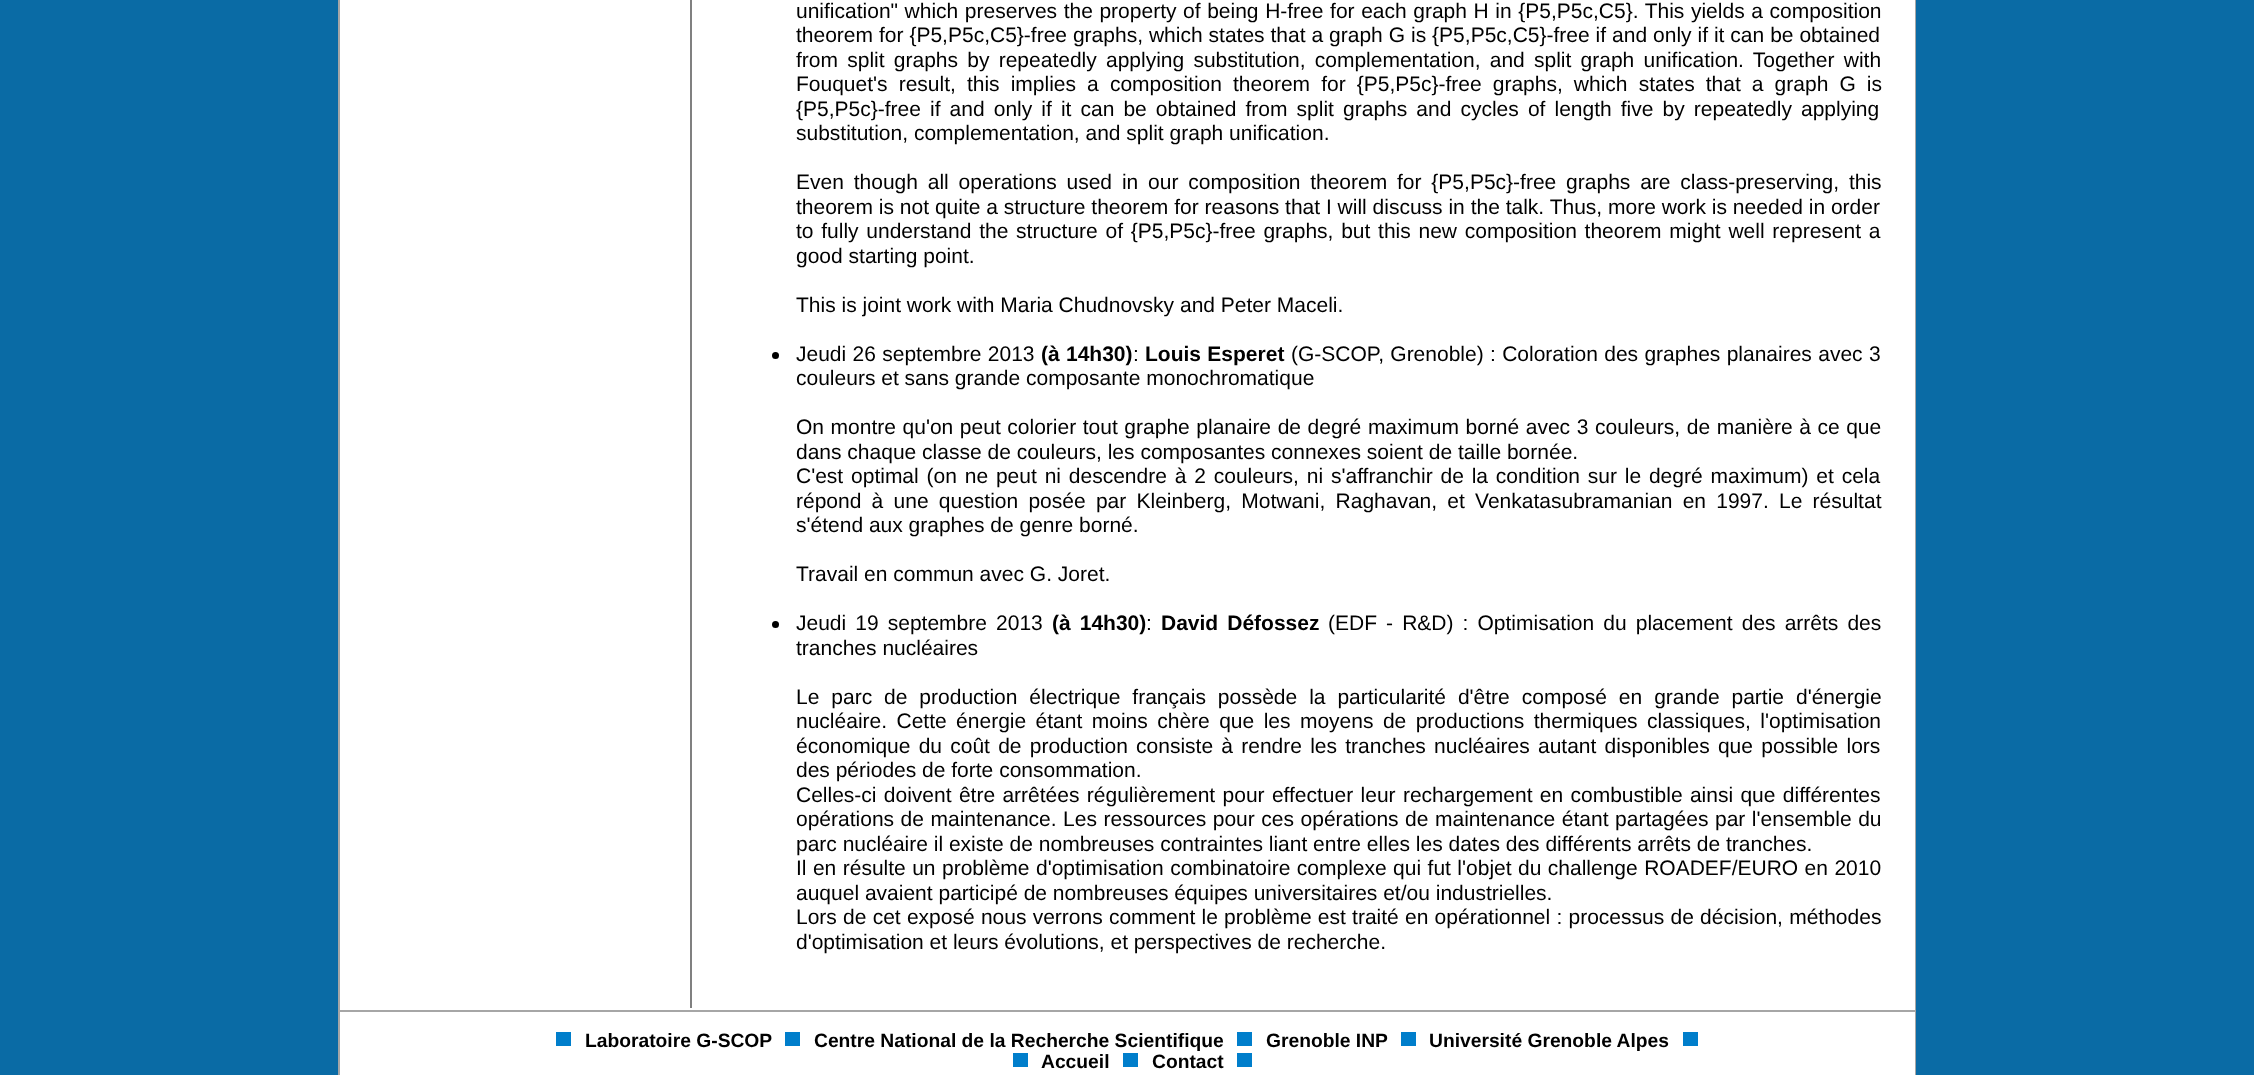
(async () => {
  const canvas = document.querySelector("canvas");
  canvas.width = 2254;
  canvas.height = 1075;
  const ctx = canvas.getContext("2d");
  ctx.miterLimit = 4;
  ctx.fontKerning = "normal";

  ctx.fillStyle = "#0a6ba5";
  ctx.fillRect(0, 0, 2254, 1075);
  ctx.strokeStyle = "#a6a6a6";
  ctx.lineWidth = 2;
  ctx.strokeRect(339, -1, 1576, 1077);
  ctx.fillStyle = "#ffffff";
  ctx.fillRect(340, 0, 1575, 1010);
  ctx.fillStyle = "#808080";
  ctx.fillRect(690, 0, 2, 1008);
  ctx.fillStyle = "#000000";
  ctx.beginPath();
  ctx.arc(775.5, 355.5, 3.5, 0, Math.PI * 2);
  ctx.fill();
  ctx.beginPath();
  ctx.arc(775.5, 624.5, 3.5, 0, Math.PI * 2);
  ctx.fill();
  for (const [x, y, w, h, color] of [
    [340, 1012, 1575, 63, "#ffffff"],
    [340, 1010, 1575, 2, "#a6a6a6"],
    [556, 1032, 15, 14, "#007ecb"],
    [785, 1032, 15, 14, "#007ecb"],
    [1237, 1032, 15, 14, "#007ecb"],
    [1401, 1032, 15, 14, "#007ecb"],
    [1683, 1032, 15, 14, "#007ecb"],
    [1013, 1053, 15, 14, "#007ecb"],
    [1123, 1053, 15, 14, "#007ecb"],
    [1237, 1053, 15, 14, "#007ecb"],
  ]) {
    ctx.fillStyle = color;
    ctx.fillRect(x, y, w, h);
  }
  ctx.wordSpacing = "0.75px";
  ctx.font = "21px Liberation Sans";
  ctx.fillStyle = "#000000";
  ctx.fillText("unification\" which preserves the property of being H-free for each graph H in {P5,P5c,C5}. This yields a composition", 796, 18);
  ctx.wordSpacing = "0.1px";
  ctx.fillText("theorem for {P5,P5c,C5}-free graphs, which states that a graph G is {P5,P5c,C5}-free if and only if it can be obtained", 796, 42);
  ctx.wordSpacing = "3.4px";
  ctx.fillText("from split graphs by repeatedly applying substitution, complementation, and split graph unification. Together with", 796, 67);
  ctx.wordSpacing = "5.25px";
  ctx.fillText("Fouquet's result, this implies a composition theorem for {P5,P5c}-free graphs, which states that a graph G is", 796, 91);
  ctx.wordSpacing = "3.25px";
  ctx.fillText("{P5,P5c}-free if and only if it can be obtained from split graphs and cycles of length five by repeatedly applying", 796, 116);
  ctx.wordSpacing = "0px";
  ctx.fillText("substitution, complementation, and split graph unification.", 796, 140);
  ctx.wordSpacing = "4px";
  ctx.fillText("Even though all operations used in our composition theorem for {P5,P5c}-free graphs are class-preserving, this", 796, 189);
  ctx.wordSpacing = "0px";
  ctx.fillText("theorem is not quite a structure theorem for reasons that I will discuss in the talk. Thus, more work is needed in order", 796, 214);
  ctx.wordSpacing = "1.9px";
  ctx.fillText("to fully understand the structure of {P5,P5c}-free graphs, but this new composition theorem might well represent a", 796, 238);
  ctx.wordSpacing = "0px";
  ctx.fillText("good starting point.", 796, 263);
  ctx.fillText("This is joint work with Maria Chudnovsky and Peter Maceli.", 796, 312);
  ctx.wordSpacing = "0.5px";
  ctx.fillText("Jeudi 26 septembre 2013", 796, 361);
  ctx.font = "bold 21px Liberation Sans";
  ctx.fillText("(à 14h30)", 1041, 361);
  ctx.wordSpacing = "0px";
  ctx.font = "21px Liberation Sans";
  ctx.fillText(":", 1133, 361);
  ctx.wordSpacing = "0.5px";
  ctx.font = "bold 21px Liberation Sans";
  ctx.fillText("Louis Esperet", 1145, 361);
  ctx.font = "21px Liberation Sans";
  ctx.fillText("(G-SCOP, Grenoble) : Coloration des graphes planaires avec 3", 1291, 361);
  ctx.wordSpacing = "0px";
  ctx.fillText("couleurs et sans grande composante monochromatique", 796, 385);
  ctx.wordSpacing = "0.75px";
  ctx.fillText("On montre qu'on peut colorier tout graphe planaire de degré maximum borné avec 3 couleurs, de manière à ce que", 796, 434);
  ctx.wordSpacing = "0px";
  ctx.fillText("dans chaque classe de couleurs, les composantes connexes soient de taille bornée.", 796, 459);
  ctx.wordSpacing = "2px";
  ctx.fillText("C'est optimal (on ne peut ni descendre à 2 couleurs, ni s'affranchir de la condition sur le degré maximum) et cela", 796, 483);
  ctx.wordSpacing = "4.4px";
  ctx.fillText("répond à une question posée par Kleinberg, Motwani, Raghavan, et Venkatasubramanian en 1997. Le résultat", 796, 508);
  ctx.wordSpacing = "0px";
  ctx.fillText("s'étend aux graphes de genre borné.", 796, 532);
  ctx.fillText("Travail en commun avec G. Joret.", 796, 581);
  ctx.wordSpacing = "3.25px";
  ctx.fillText("Jeudi 19 septembre 2013", 796, 630);
  ctx.font = "bold 21px Liberation Sans";
  ctx.fillText("(à 14h30)", 1052, 630);
  ctx.wordSpacing = "0px";
  ctx.font = "21px Liberation Sans";
  ctx.fillText(":", 1146, 630);
  ctx.wordSpacing = "3.25px";
  ctx.font = "bold 21px Liberation Sans";
  ctx.fillText("David Défossez", 1161, 630);
  ctx.font = "21px Liberation Sans";
  ctx.fillText("(EDF - R&D) : Optimisation du placement des arrêts des", 1328, 630);
  ctx.wordSpacing = "0px";
  ctx.fillText("tranches nucléaires", 796, 655);
  ctx.wordSpacing = "6.1px";
  ctx.fillText("Le parc de production électrique français possède la particularité d'être composé en grande partie d'énergie", 796, 704);
  ctx.wordSpacing = "3.6px";
  ctx.fillText("nucléaire. Cette énergie étant moins chère que les moyens de productions thermiques classiques, l'optimisation", 796, 728);
  ctx.wordSpacing = "2.4px";
  ctx.fillText("économique du coût de production consiste à rendre les tranches nucléaires autant disponibles que possible lors", 796, 753);
  ctx.wordSpacing = "0px";
  ctx.fillText("des périodes de forte consommation.", 796, 777);
  ctx.wordSpacing = "1.5px";
  ctx.fillText("Celles-ci doivent être arrêtées régulièrement pour effectuer leur rechargement en combustible ainsi que différentes", 796, 802);
  ctx.wordSpacing = "0.7px";
  ctx.fillText("opérations de maintenance. Les ressources pour ces opérations de maintenance étant partagées par l'ensemble du", 796, 826);
  ctx.wordSpacing = "0px";
  ctx.fillText("parc nucléaire il existe de nombreuses contraintes liant entre elles les dates des différents arrêts de tranches.", 796, 851);
  ctx.wordSpacing = "0.6px";
  ctx.fillText("Il en résulte un problème d'optimisation combinatoire complexe qui fut l'objet du challenge ROADEF/EURO en 2010", 796, 875);
  ctx.wordSpacing = "0px";
  ctx.fillText("auquel avaient participé de nombreuses équipes universitaires et/ou industrielles.", 796, 900);
  ctx.wordSpacing = "0.4px";
  ctx.fillText("Lors de cet exposé nous verrons comment le problème est traité en opérationnel : processus de décision, méthodes", 796, 924);
  ctx.wordSpacing = "0px";
  ctx.fillText("d'optimisation et leurs évolutions, et perspectives de recherche.", 796, 949);
  ctx.font = "bold 19.25px Liberation Sans";
  for (const [text, x, y] of [
    ["Laboratoire G-SCOP", 585, 1047],
    ["Centre National de la Recherche Scientifique", 814, 1047],
    ["Grenoble INP", 1266, 1047],
    ["Université Grenoble Alpes", 1429, 1047],
    ["Accueil", 1041, 1068],
    ["Contact", 1152, 1068],
  ]) {
    ctx.fillText(text, x, y);
  }
})();
